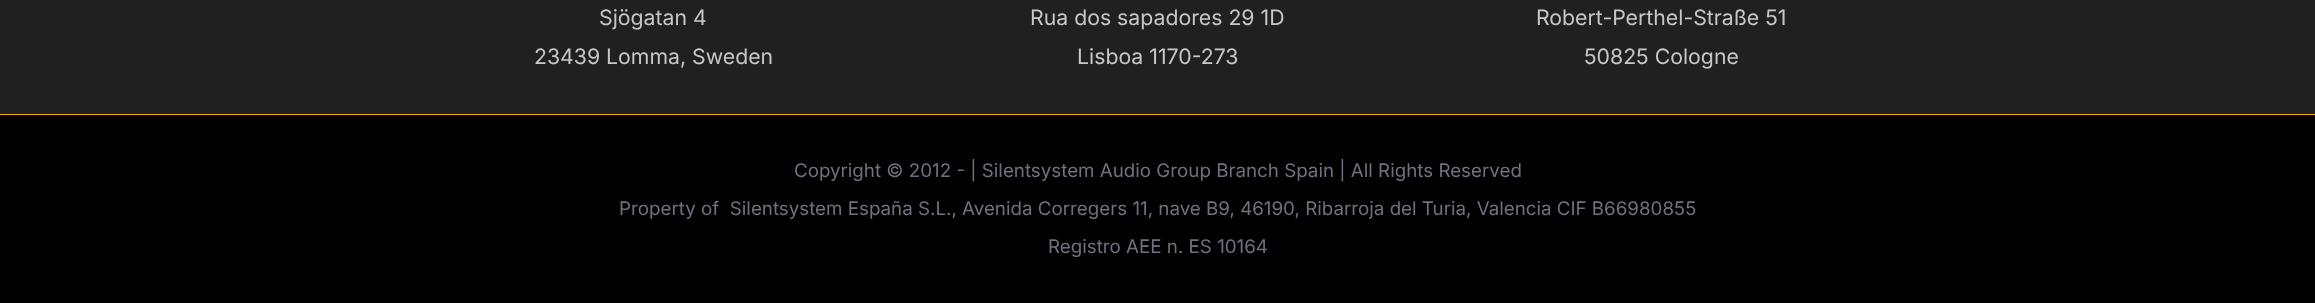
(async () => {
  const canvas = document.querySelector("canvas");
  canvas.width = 2315;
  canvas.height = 303;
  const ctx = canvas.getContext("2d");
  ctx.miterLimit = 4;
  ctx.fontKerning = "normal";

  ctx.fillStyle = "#000000";
  ctx.fillRect(0, 0, 2315, 303);
  ctx.fillStyle = "#202020";
  ctx.fillRect(0, 0, 2315, 114);
  ctx.fillStyle = "#ffaa19";
  ctx.fillRect(0, 114, 2315, 1);
  ctx.font = "21.25px Inter";
  ctx.fillStyle = "#c7c7c7";
  for (const [text, x, y] of [
    ["Sjögatan 4", 599, 25],
    ["23439 Lomma, Sweden", 534, 64],
    ["Rua dos sapadores 29 1D", 1030, 25],
    ["Lisboa 1170-273", 1077, 64],
    ["Robert-Perthel-Straße 51", 1536, 25],
    ["50825 Cologne", 1584, 64],
  ]) {
    ctx.fillText(text, x, y);
  }
  ctx.font = "18.75px Inter";
  ctx.fillStyle = "#70717f";
  for (const [text, x, y] of [
    ["Copyright © 2012 - | Silentsystem Audio Group Branch Spain | All Rights Reserved", 794, 177],
    ["Property of  Silentsystem España S.L., Avenida Corregers 11, nave B9, 46190, Ribarroja del Turia, Valencia CIF B66980855", 619, 215],
    ["Registro AEE n. ES 10164", 1048, 253],
  ]) {
    ctx.fillText(text, x, y);
  }
})();
